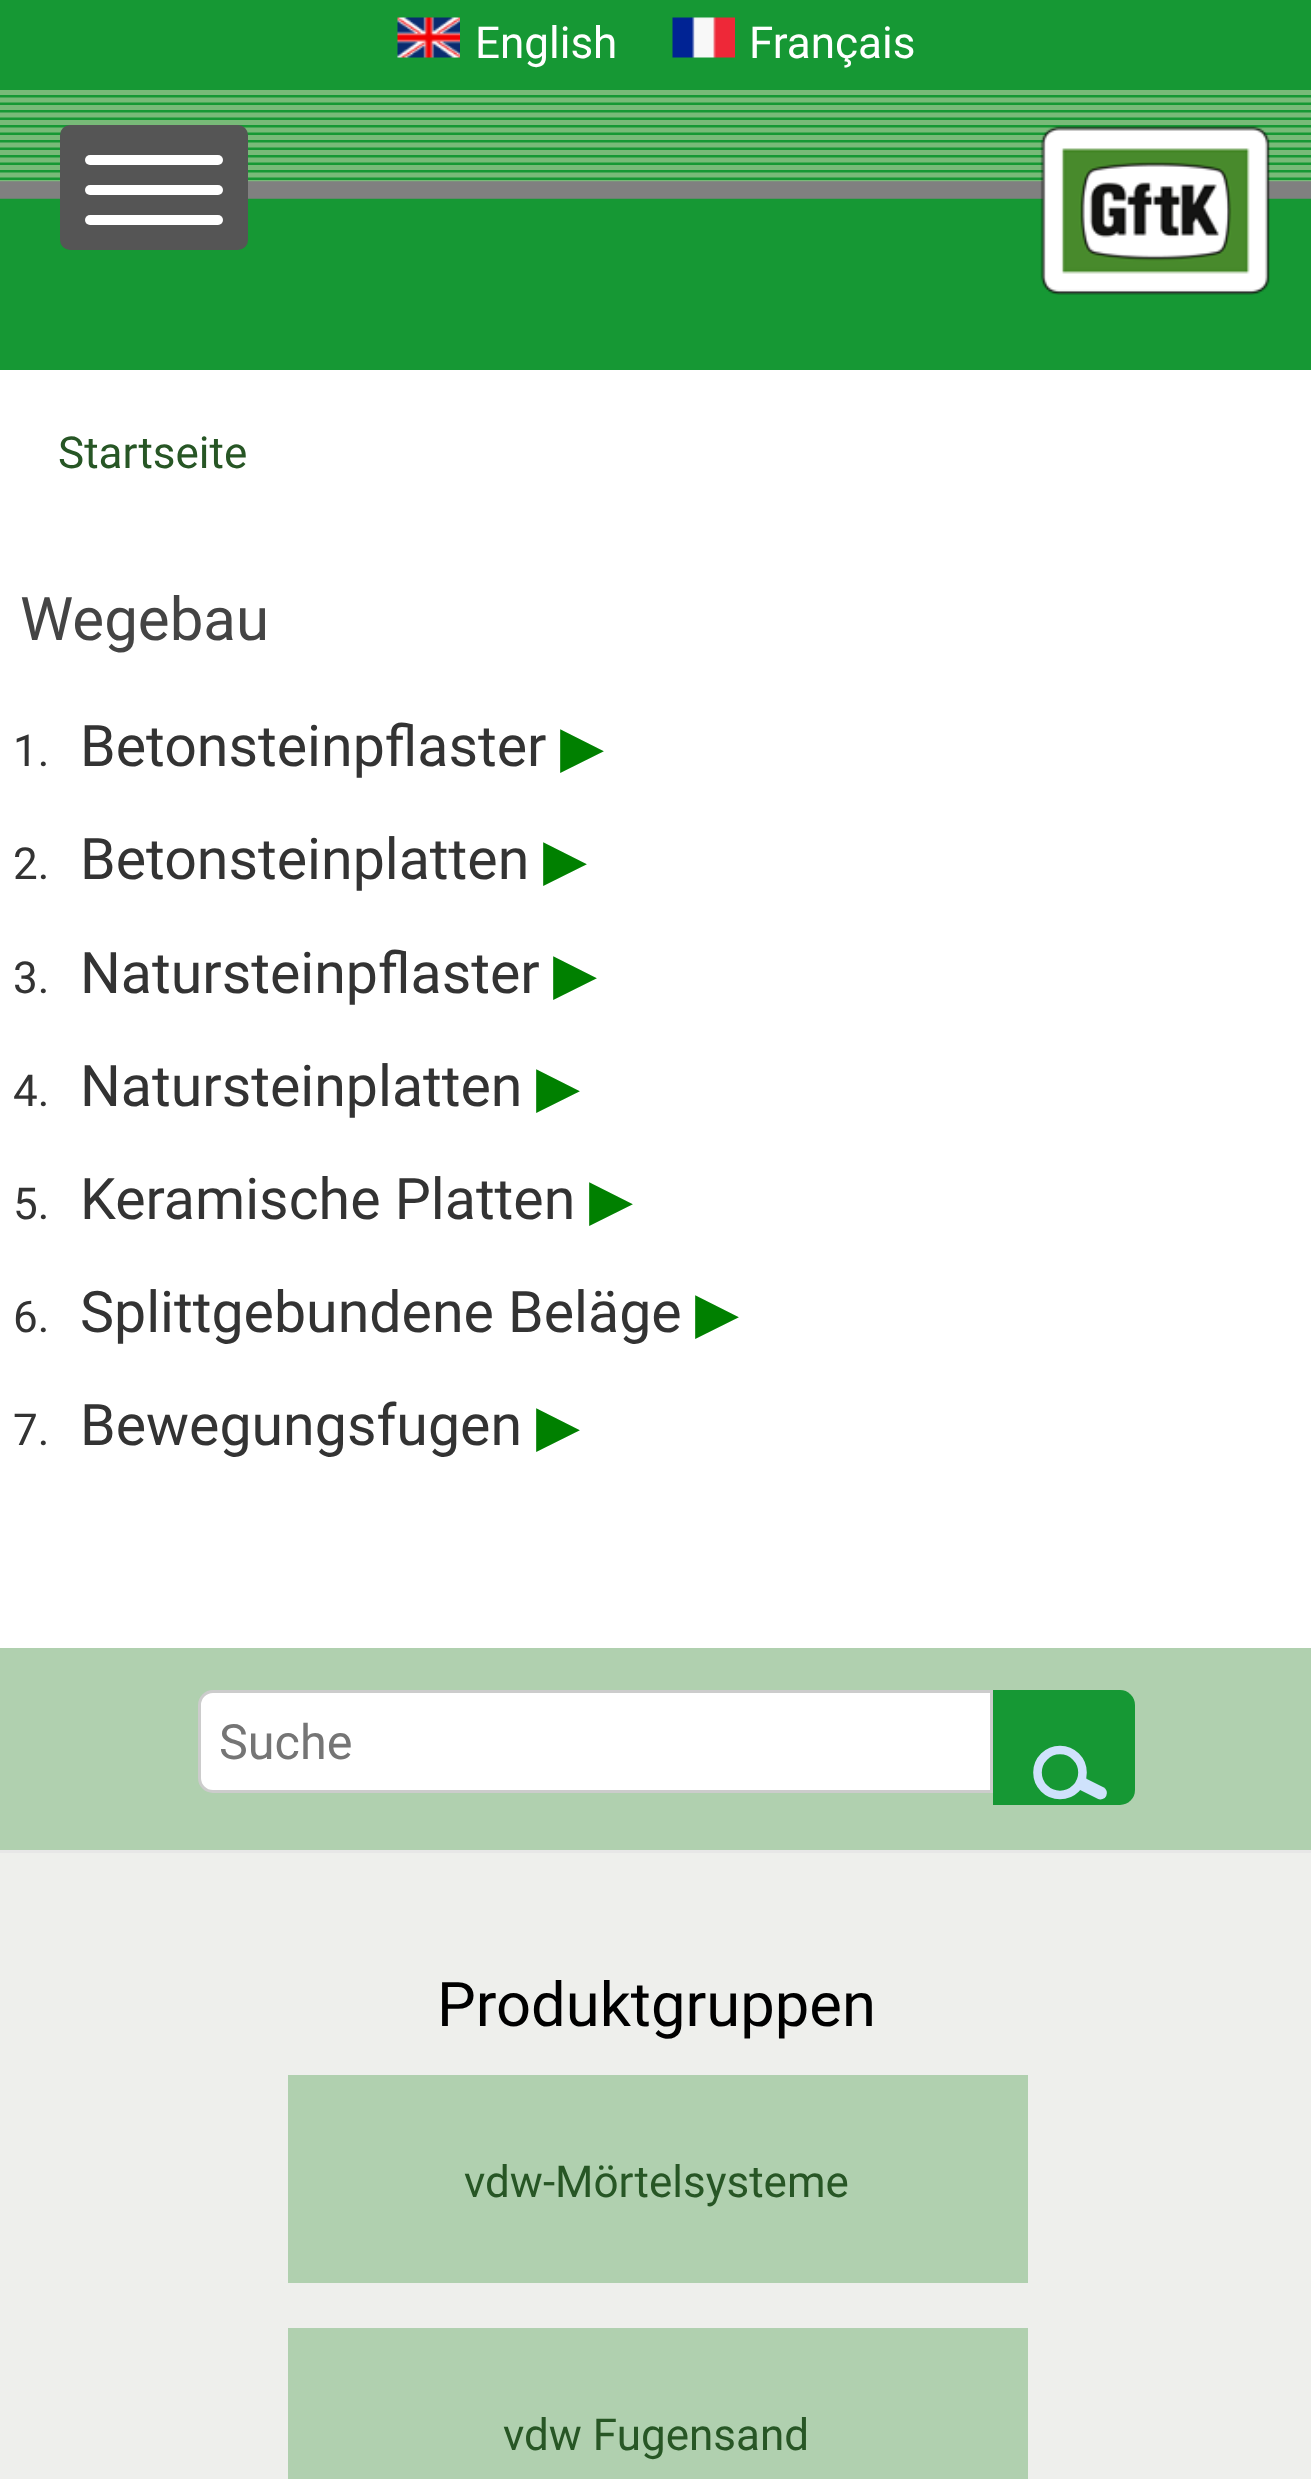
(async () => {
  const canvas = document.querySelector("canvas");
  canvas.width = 1311;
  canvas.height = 2479;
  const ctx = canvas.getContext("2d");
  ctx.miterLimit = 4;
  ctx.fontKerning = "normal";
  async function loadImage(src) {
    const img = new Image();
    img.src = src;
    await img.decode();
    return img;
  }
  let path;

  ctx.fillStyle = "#ffffff";
  ctx.fillRect(0, 0, 1311, 2479);
  ctx.fillStyle = "#169834";
  ctx.fillRect(0, 0, 1311, 370);
  ctx.drawImage(await loadImage("img/1.png"), 397, 17, 63, 41);
  ctx.drawImage(await loadImage("img/2.png"), 672, 17, 63, 41);
  ctx.drawImage(await loadImage("img/3.png"), 0, 90, 1311, 109);
  ctx.fillStyle = "#555555";
  ctx.beginPath();
  ctx.roundRect(60, 125, 188, 125, 10);
  ctx.fill();
  ctx.fillStyle = "#ffffff";
  ctx.beginPath();
  ctx.roundRect(85, 155, 138, 10, 5);
  ctx.fill();
  ctx.beginPath();
  ctx.roundRect(85, 185, 138, 10, 5);
  ctx.fill();
  ctx.beginPath();
  ctx.roundRect(85, 215, 138, 10, 5);
  ctx.fill();
  ctx.drawImage(await loadImage("img/4.png"), 1040, 126, 230, 169);
  ctx.fillStyle = "#b0d0af";
  ctx.fillRect(0, 1648, 1311, 202);
  ctx.fillStyle = "#ffffff";
  ctx.beginPath();
  ctx.roundRect(199.5, 1691.5, 792, 100, [13.5, 0, 0, 13.5]);
  ctx.fill();
  ctx.strokeStyle = "#cccccc";
  ctx.lineWidth = 3;
  ctx.stroke();
  ctx.fillStyle = "#169834";
  ctx.beginPath();
  ctx.roundRect(993, 1690, 142, 115, [0, 15, 15, 0]);
  ctx.fill();
  ctx.beginPath();
  ctx.arc(1060, 1772.5, 22.5, 0, Math.PI * 2);
  ctx.strokeStyle = "#cfe2fc";
  ctx.lineWidth = 8.6;
  ctx.stroke();
  path = new Path2D("M1082.5 1784L1100.5 1793");
  ctx.lineWidth = 12.9;
  ctx.lineCap = "round";
  ctx.stroke(path);
  for (const [x, y, w, h, color] of [
    [0, 1853, 1311, 626, "#eeefec"],
    [0, 1850, 1311, 3, "#e7e7e7"],
    [288, 2075, 740, 208, "#b0d0af"],
    [288, 2328, 740, 151, "#b0d0af"],
  ]) {
    ctx.fillStyle = color;
    ctx.fillRect(x, y, w, h);
  }
  ctx.font = "44px Roboto";
  ctx.fillStyle = "#ffffff";
  ctx.fillText("English", 475, 58);
  ctx.fillText("Français", 749, 58);
  ctx.fillStyle = "#275625";
  ctx.fillText("Startseite", 58, 468);
  ctx.font = "60px Roboto";
  ctx.fillStyle = "#444444";
  ctx.fillText("Wegebau", 20, 640);
  ctx.font = "44px Roboto";
  ctx.fillStyle = "#333333";
  ctx.fillText("1.", 13, 766);
  ctx.font = "57.25px Roboto";
  ctx.fillText("Betonsteinpflaster", 80, 766);
  ctx.font = "57.25px DejaVu Sans";
  ctx.fillStyle = "#008000";
  ctx.fillText("▶", 560, 766);
  ctx.font = "44px Roboto";
  ctx.fillStyle = "#333333";
  ctx.fillText("2.", 13, 879);
  ctx.font = "57.25px Roboto";
  ctx.fillText("Betonsteinplatten", 80, 879);
  ctx.font = "57.25px DejaVu Sans";
  ctx.fillStyle = "#008000";
  ctx.fillText("▶", 543, 879);
  ctx.font = "44px Roboto";
  ctx.fillStyle = "#333333";
  ctx.fillText("3.", 13, 993);
  ctx.font = "57.25px Roboto";
  ctx.fillText("Natursteinpflaster", 80, 993);
  ctx.font = "57.25px DejaVu Sans";
  ctx.fillStyle = "#008000";
  ctx.fillText("▶", 553, 993);
  ctx.font = "44px Roboto";
  ctx.fillStyle = "#333333";
  ctx.fillText("4.", 13, 1106);
  ctx.font = "57.25px Roboto";
  ctx.fillText("Natursteinplatten", 80, 1106);
  ctx.font = "57.25px DejaVu Sans";
  ctx.fillStyle = "#008000";
  ctx.fillText("▶", 536, 1106);
  ctx.font = "44px Roboto";
  ctx.fillStyle = "#333333";
  ctx.fillText("5.", 13, 1219);
  ctx.font = "57.25px Roboto";
  ctx.fillText("Keramische Platten", 80, 1219);
  ctx.font = "57.25px DejaVu Sans";
  ctx.fillStyle = "#008000";
  ctx.fillText("▶", 589, 1219);
  ctx.font = "44px Roboto";
  ctx.fillStyle = "#333333";
  ctx.fillText("6.", 13, 1332);
  ctx.font = "57.25px Roboto";
  ctx.fillText("Splittgebundene Beläge", 80, 1332);
  ctx.font = "57.25px DejaVu Sans";
  ctx.fillStyle = "#008000";
  ctx.fillText("▶", 695, 1332);
  ctx.font = "44px Roboto";
  ctx.fillStyle = "#333333";
  ctx.fillText("7.", 13, 1445);
  ctx.font = "57.25px Roboto";
  ctx.fillText("Bewegungsfugen", 80, 1445);
  ctx.font = "57.25px DejaVu Sans";
  ctx.fillStyle = "#008000";
  ctx.fillText("▶", 536, 1445);
  ctx.font = "48.5px Roboto";
  ctx.fillStyle = "#757575";
  ctx.fillText("Suche", 219, 1759);
  ctx.font = "61.5px Roboto";
  ctx.fillStyle = "#000000";
  ctx.fillText("Produktgruppen", 437, 2026);
  ctx.font = "44px Roboto";
  ctx.fillStyle = "#275625";
  ctx.fillText("vdw-Mörtelsysteme", 464, 2197);
  ctx.fillText("vdw Fugensand", 503, 2450);
})();
